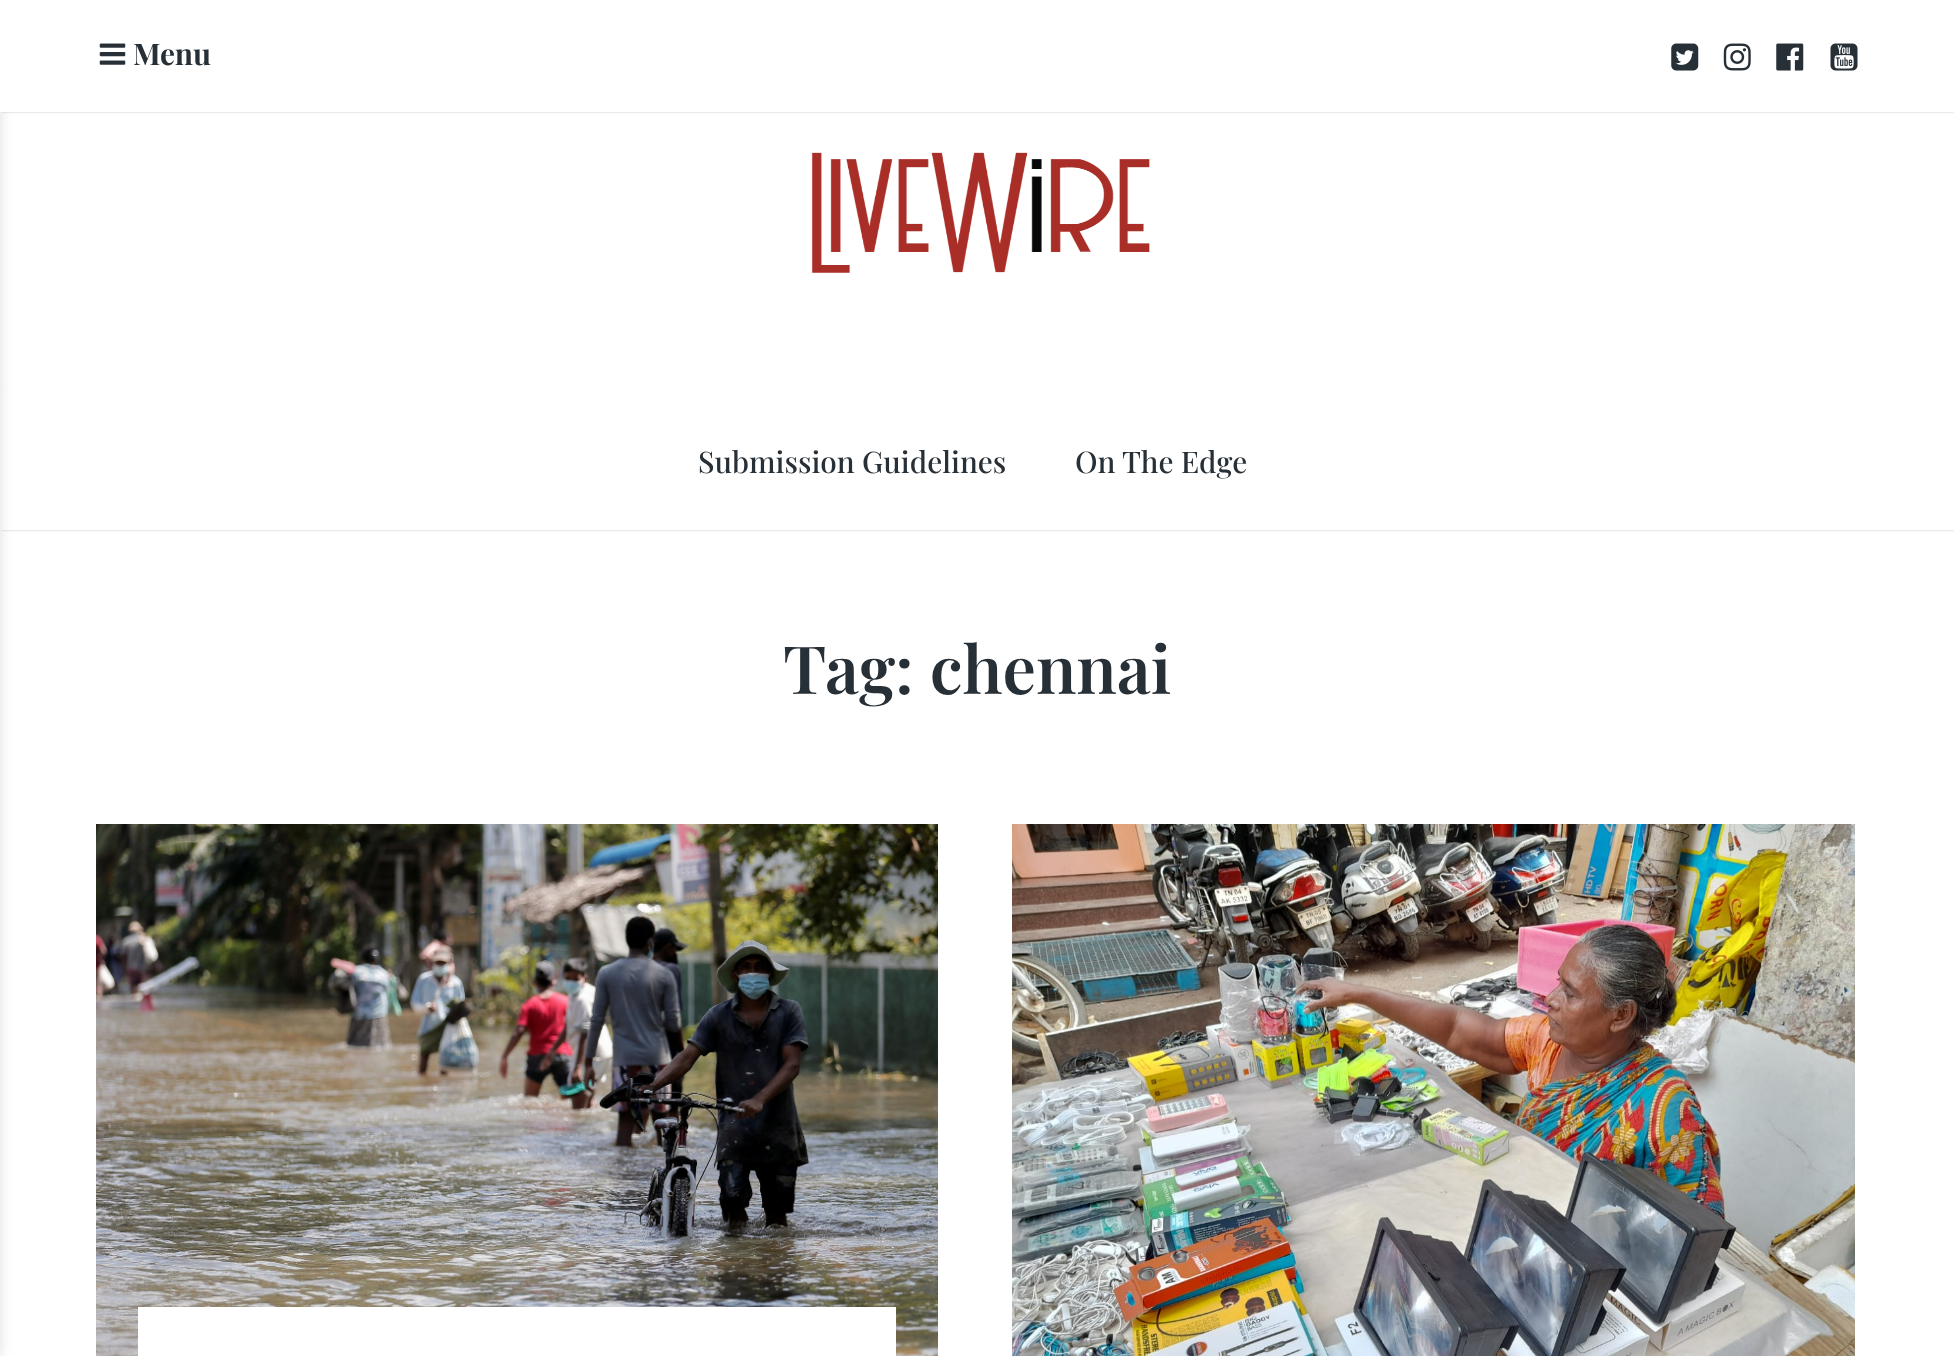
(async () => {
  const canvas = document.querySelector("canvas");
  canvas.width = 1954;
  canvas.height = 1356;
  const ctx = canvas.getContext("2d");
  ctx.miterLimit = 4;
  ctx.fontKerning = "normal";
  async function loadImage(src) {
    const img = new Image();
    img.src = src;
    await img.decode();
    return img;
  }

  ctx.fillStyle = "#ffffff";
  ctx.fillRect(0, 0, 1954, 1356);
  ctx.fillStyle = "rgba(0, 0, 0, 0.25)";
  ctx.filter = "blur(1px)";
  ctx.beginPath();
  ctx.rect(2, 390, 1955, 140);
  ctx.fill();
  ctx.filter = "none";
  ctx.fillStyle = "#ffffff";
  ctx.fillRect(1, 388, 1953, 2);
  ctx.fillRect(0, 390, 1954, 140);
  ctx.fillStyle = "rgba(0, 0, 0, 0.13)";
  ctx.filter = "blur(7px)";
  ctx.beginPath();
  ctx.rect(-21, 0, 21, 1356);
  ctx.fill();
  ctx.filter = "none";
  ctx.fillStyle = "rgba(0, 0, 0, 0.25)";
  ctx.filter = "blur(1px)";
  ctx.beginPath();
  ctx.rect(2, 0, 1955, 112);
  ctx.fill();
  ctx.filter = "none";
  ctx.fillStyle = "#ffffff";
  ctx.fillRect(0, 0, 1954, 112);
  ctx.drawImage(await loadImage("img/1.png"), 99, 43, 27, 22);
  ctx.drawImage(await loadImage("img/2.png"), 1671, 43, 28, 28);
  ctx.drawImage(await loadImage("img/3.png"), 1723, 43, 28, 28);
  ctx.drawImage(await loadImage("img/4.png"), 1776, 43, 28, 28);
  ctx.drawImage(await loadImage("img/5.png"), 1830, 43, 28, 28);
  ctx.drawImage(await loadImage("img/6.png"), 811, 152, 339, 121);
  ctx.drawImage(await loadImage("img/7.png"), 96, 824, 842, 532);
  ctx.fillRect(138, 1307, 758, 49);
  ctx.drawImage(await loadImage("img/8.png"), 1012, 824, 843, 532);
  ctx.font = "bold 29.75px Playfair Display";
  ctx.fillStyle = "#283037";
  ctx.fillText("Menu", 133, 65);
  ctx.font = "500 29.75px Playfair Display";
  ctx.fillText("Submission Guidelines", 698, 473);
  ctx.fillText("On The Edge", 1075, 473);
  ctx.font = "600 66.5px Playfair Display";
  ctx.fillText("Tag: chennai", 783, 694);
})();
